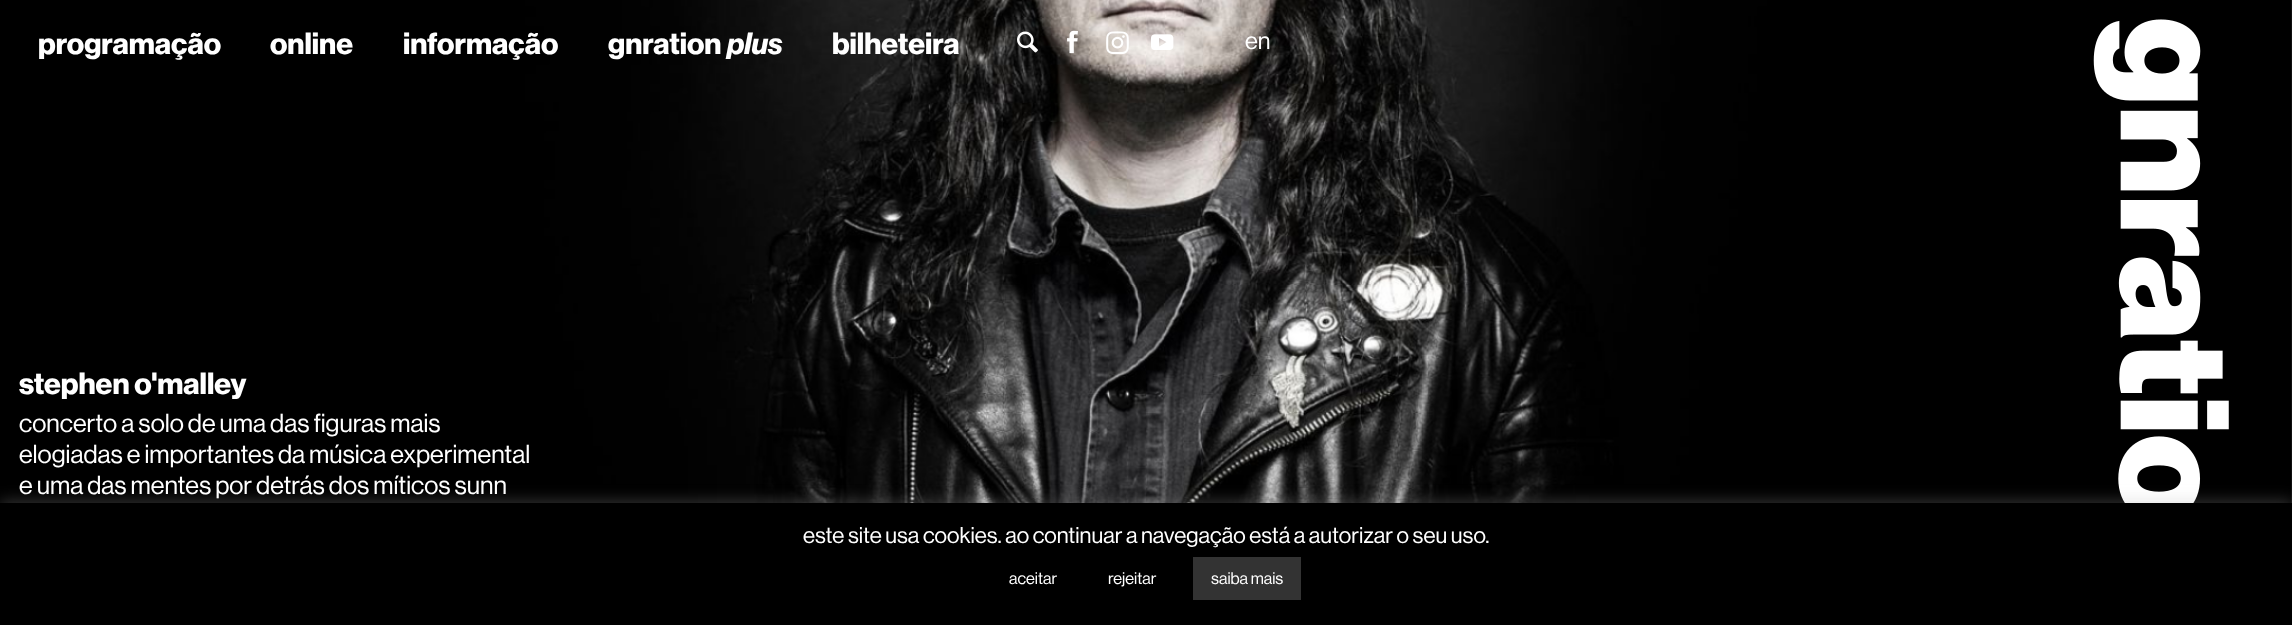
(async () => {
  const canvas = document.querySelector("canvas");
  canvas.width = 2292;
  canvas.height = 625;
  const ctx = canvas.getContext("2d");
  ctx.miterLimit = 4;
  ctx.fontKerning = "normal";
  async function loadImage(src) {
    const img = new Image();
    img.src = src;
    await img.decode();
    return img;
  }

  ctx.fillStyle = "#ffffff";
  ctx.fillRect(0, 0, 2292, 625);
  ctx.drawImage(await loadImage("img/6.png"), 0, 0, 2292, 503);
  ctx.drawImage(await loadImage("img/1.png"), 1017, 31, 21, 22);
  ctx.drawImage(await loadImage("img/2.png"), 1067, 30, 11, 24);
  ctx.drawImage(await loadImage("img/3.png"), 1106, 31, 23, 24);
  ctx.drawImage(await loadImage("img/4.png"), 1151, 34, 23, 16);
  ctx.drawImage(await loadImage("img/5.png"), 2093, 19, 136, 484);
  ctx.fillStyle = "rgba(172, 171, 171, 0.3)";
  ctx.filter = "blur(7.5px)";
  ctx.beginPath();
  ctx.rect(0, 501, 2292, 123);
  ctx.fill();
  ctx.filter = "none";
  ctx.fillStyle = "#000000";
  ctx.fillRect(0, 503, 2292, 122);
  ctx.fillStyle = "#333333";
  ctx.fillRect(1193, 557, 108, 43);
  ctx.font = "bold 30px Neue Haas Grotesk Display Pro";
  ctx.fillStyle = "#ffffff";
  for (const [text, x, y] of [
    ["programação", 38, 54],
    ["online", 270, 54],
    ["informação", 403, 54],
    ["gnration", 608, 54],
  ]) {
    ctx.fillText(text, x, y);
  }
  ctx.font = "italic bold 30px Neue Haas Grotesk Display Pro";
  ctx.fillText("plus", 727, 54);
  ctx.font = "bold 30px Neue Haas Grotesk Display Pro";
  ctx.fillText("bilheteira", 832, 54);
  ctx.font = "24px Neue Haas Grotesk Display Pro";
  ctx.fillText("en", 1245, 49);
  ctx.font = "bold 30px Neue Haas Grotesk Display Pro";
  ctx.fillText("stephen o'malley", 19, 394);
  ctx.font = "25.5px Neue Haas Grotesk Display Pro";
  for (const [text, x, y] of [
    ["concerto a solo de uma das figuras mais", 19, 432],
    ["elogiadas e importantes da música experimental", 19, 463],
    ["e uma das mentes por detrás dos míticos sunn", 19, 494],
  ]) {
    ctx.fillText(text, x, y);
  }
  ctx.font = "22.5px Neue Haas Grotesk Display Pro";
  ctx.fillText("este site usa cookies. ao continuar a navegação está a autorizar o seu uso.", 803, 543);
  ctx.font = "16.5px Neue Haas Grotesk Display Pro";
  for (const [text, x, y] of [
    ["aceitar", 1009, 584],
    ["rejeitar", 1108, 584],
    ["saiba mais", 1211, 584],
  ]) {
    ctx.fillText(text, x, y);
  }
})();
